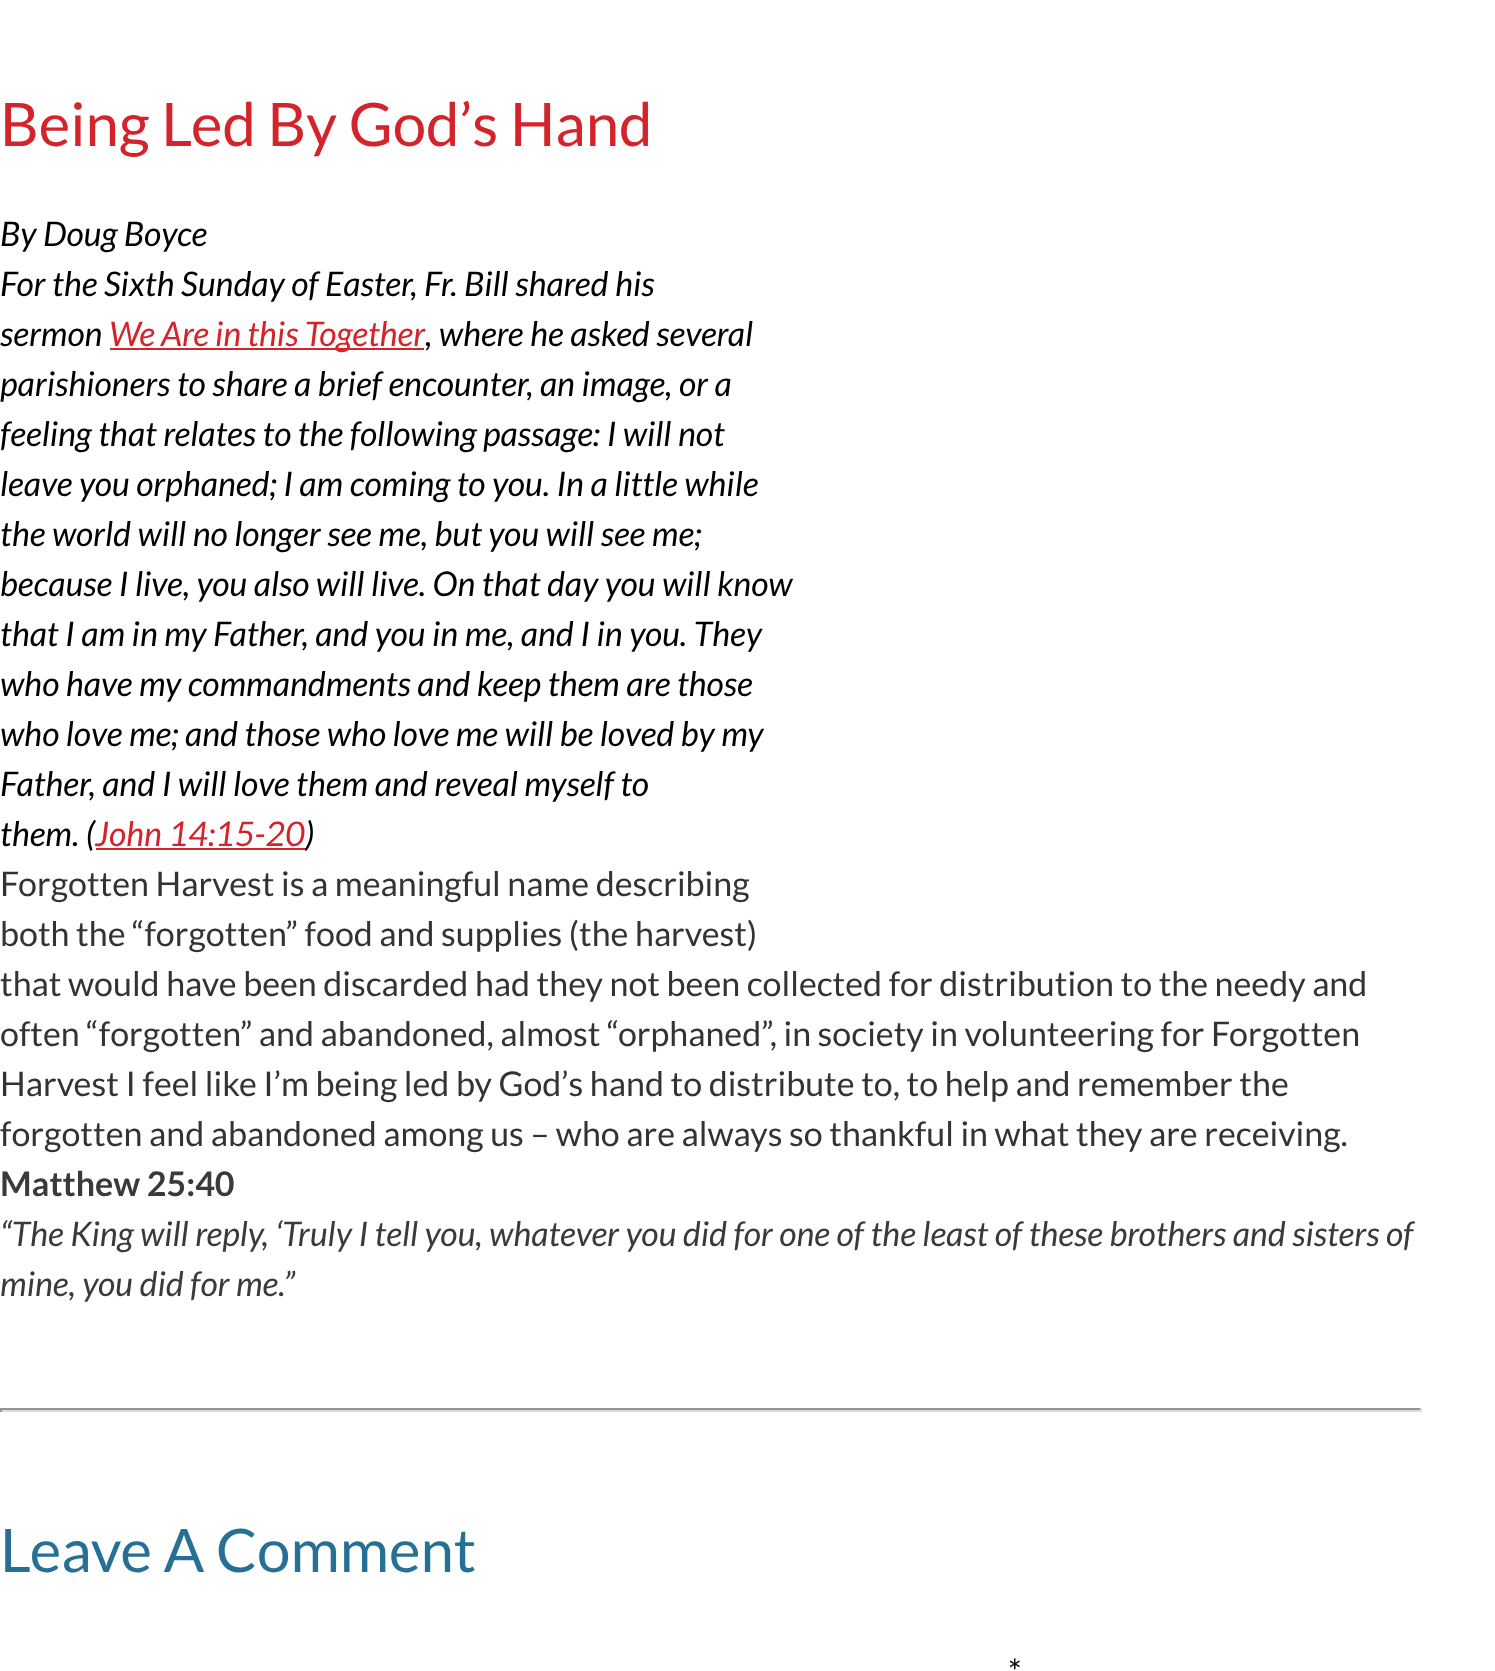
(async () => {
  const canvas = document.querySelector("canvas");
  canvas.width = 1495;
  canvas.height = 1671;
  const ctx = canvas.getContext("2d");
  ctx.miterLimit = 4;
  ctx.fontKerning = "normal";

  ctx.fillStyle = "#ffffff";
  ctx.fillRect(0, 0, 1495, 1671);
  for (const [x, y, w, h, color] of [
    [110, 348, 314, 2, "#d2242a"],
    [96, 848, 210, 2, "#d2242a"],
    [0, 1408, 1422, 2, "#929292"],
    [1420, 1408, 2, 4, "#dbdbdb"],
    [0, 1410, 1422, 2, "#dbdbdb"],
    [0, 1408, 2, 4, "#929292"],
  ]) {
    ctx.fillStyle = color;
    ctx.fillRect(x, y, w, h);
  }
  ctx.font = "60px Lato";
  ctx.fillStyle = "#d2242a";
  ctx.fillText("Being Led By God’s Hand", 0, 146);
  ctx.font = "italic 34px Lato";
  ctx.fillStyle = "#000000";
  for (const [text, x, y] of [
    ["By Doug Boyce", 0, 246],
    ["For the Sixth Sunday of Easter, Fr. Bill shared his", 0, 296],
    ["sermon", 0, 346],
  ]) {
    ctx.fillText(text, x, y);
  }
  ctx.wordSpacing = "-0.5px";
  ctx.fillStyle = "#d2242a";
  ctx.fillText("We Are in this Together", 109, 346);
  ctx.wordSpacing = "0px";
  ctx.fillStyle = "#000000";
  for (const [text, x, y] of [
    [", where he asked several", 425, 346],
    ["parishioners to share a brief encounter, an image, or a", 0, 396],
    ["feeling that relates to the following passage: I will not", 0, 446],
    ["leave you orphaned; I am coming to you. In a little while", 0, 496],
    ["the world will no longer see me, but you will see me;", 0, 546],
    ["because I live, you also will live. On that day you will know", 0, 596],
    ["that I am in my Father, and you in me, and I in you. They", 0, 646],
    ["who have my commandments and keep them are those", 0, 696],
    ["who love me; and those who love me will be loved by my", 0, 746],
    ["Father, and I will love them and reveal myself to", 0, 796],
    ["them. (", 0, 846],
  ]) {
    ctx.fillText(text, x, y);
  }
  ctx.fillStyle = "#d2242a";
  ctx.fillText("John 14:15-20", 95, 846);
  ctx.fillStyle = "#000000";
  ctx.fillText(")", 305, 846);
  ctx.font = "34px Lato";
  ctx.fillStyle = "#333333";
  for (const [text, x, y] of [
    ["Forgotten Harvest is a meaningful name describing", 0, 896],
    ["both the “forgotten” food and supplies (the harvest)", 0, 946],
    ["that would have been discarded had they not been collected for distribution to the needy and", 0, 996],
    ["often “forgotten” and abandoned, almost “orphaned”, in society in volunteering for Forgotten", 0, 1046],
    ["Harvest I feel like I’m being led by God’s hand to distribute to, to help and remember the", 0, 1096],
    ["forgotten and abandoned among us – who are always so thankful in what they are receiving.", 0, 1146],
  ]) {
    ctx.fillText(text, x, y);
  }
  ctx.font = "bold 34px Lato";
  ctx.fillStyle = "#3a3a3a";
  ctx.fillText("Matthew 25:40", 0, 1196);
  ctx.font = "italic 34px Lato";
  ctx.fillText("“The King will reply, ‘Truly I tell you, whatever you did for one of the least of these brothers and sisters of", 0, 1246);
  ctx.fillText("mine, you did for me.”", 0, 1296);
  ctx.font = "60px Lato";
  ctx.fillStyle = "#267096";
  ctx.fillText("Leave A Comment", 0, 1572);
  ctx.font = "34px Lato";
  ctx.fillStyle = "#000000";
  ctx.fillText("*", 1008, 1684);
})();
